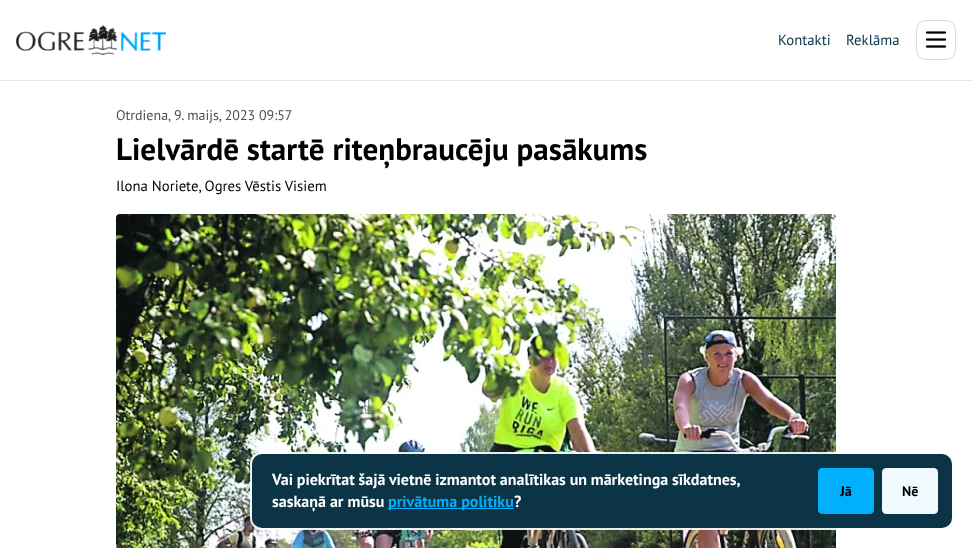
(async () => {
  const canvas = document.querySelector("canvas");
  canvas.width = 972;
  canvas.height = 548;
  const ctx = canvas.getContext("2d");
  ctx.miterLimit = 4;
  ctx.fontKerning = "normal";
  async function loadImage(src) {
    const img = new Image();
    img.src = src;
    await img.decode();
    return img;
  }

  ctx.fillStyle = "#ffffff";
  ctx.fillRect(0, 0, 972, 548);
  ctx.drawImage(await loadImage("img/1.png"), 16, 25, 150, 30);
  ctx.beginPath();
  ctx.roundRect(916.5, 20.5, 39, 39, 9.5);
  ctx.strokeStyle = "#d9d9d9";
  ctx.stroke();
  ctx.drawImage(await loadImage("img/2.png"), 925, 31, 22, 17);
  ctx.fillStyle = "#e6e6e6";
  ctx.fillRect(0, 80, 972, 1);
  ctx.drawImage(await loadImage("img/3.png"), 116, 214, 720, 334);
  ctx.beginPath();
  ctx.roundRect(251, 453, 702, 76, 11);
  ctx.strokeStyle = "rgba(255, 255, 255, 0.9)";
  ctx.lineWidth = 2;
  ctx.stroke();
  ctx.fillStyle = "#0b3446";
  ctx.beginPath();
  ctx.roundRect(252, 454, 700, 74, 10);
  ctx.fill();
  ctx.fillStyle = "#00b0fd";
  ctx.fillRect(388, 508, 126, 1);
  ctx.beginPath();
  ctx.roundRect(818.5, 468.5, 55, 45, 3.5);
  ctx.fill();
  ctx.strokeStyle = "#00b0fd";
  ctx.lineWidth = 1;
  ctx.stroke();
  ctx.fillStyle = "#f0fafe";
  ctx.beginPath();
  ctx.roundRect(882.5, 468.5, 55, 45, 3.5);
  ctx.fill();
  ctx.strokeStyle = "#f0fafe";
  ctx.stroke();
  ctx.font = "14.75px PT Sans";
  ctx.fillStyle = "#0b3446";
  ctx.fillText("Kontakti", 778, 45);
  ctx.fillText("Reklāma", 846, 45);
  ctx.font = "14px PT Sans";
  ctx.fillStyle = "#495057";
  ctx.fillText("Otrdiena, 9. maijs, 2023 09:57", 116, 120);
  ctx.font = "bold 31.1px PT Sans";
  ctx.fillStyle = "#000000";
  ctx.fillText("Lielvārdē startē riteņbraucēju pasākums", 116, 160);
  ctx.font = "14.75px PT Sans";
  ctx.fillText("Ilona Noriete, Ogres Vēstis Visiem", 116, 191);
  ctx.wordSpacing = "-0.25px";
  ctx.font = "bold 16px PT Sans";
  ctx.fillStyle = "#ffffff";
  ctx.fillText("Vai piekrītat šajā vietnē izmantot analītikas un mārketinga sīkdatnes,", 272, 485);
  ctx.wordSpacing = "0px";
  ctx.fillText("saskaņā ar mūsu", 272, 507);
  ctx.fillStyle = "#00b0fd";
  ctx.fillText("privātuma politiku", 388, 507);
  ctx.fillStyle = "#ffffff";
  ctx.fillText("?", 514, 507);
  ctx.font = "bold 14px PT Sans";
  ctx.fillStyle = "#000000";
  ctx.fillText("Jā", 840, 496);
  ctx.fillText("Nē", 902, 496);
})();
